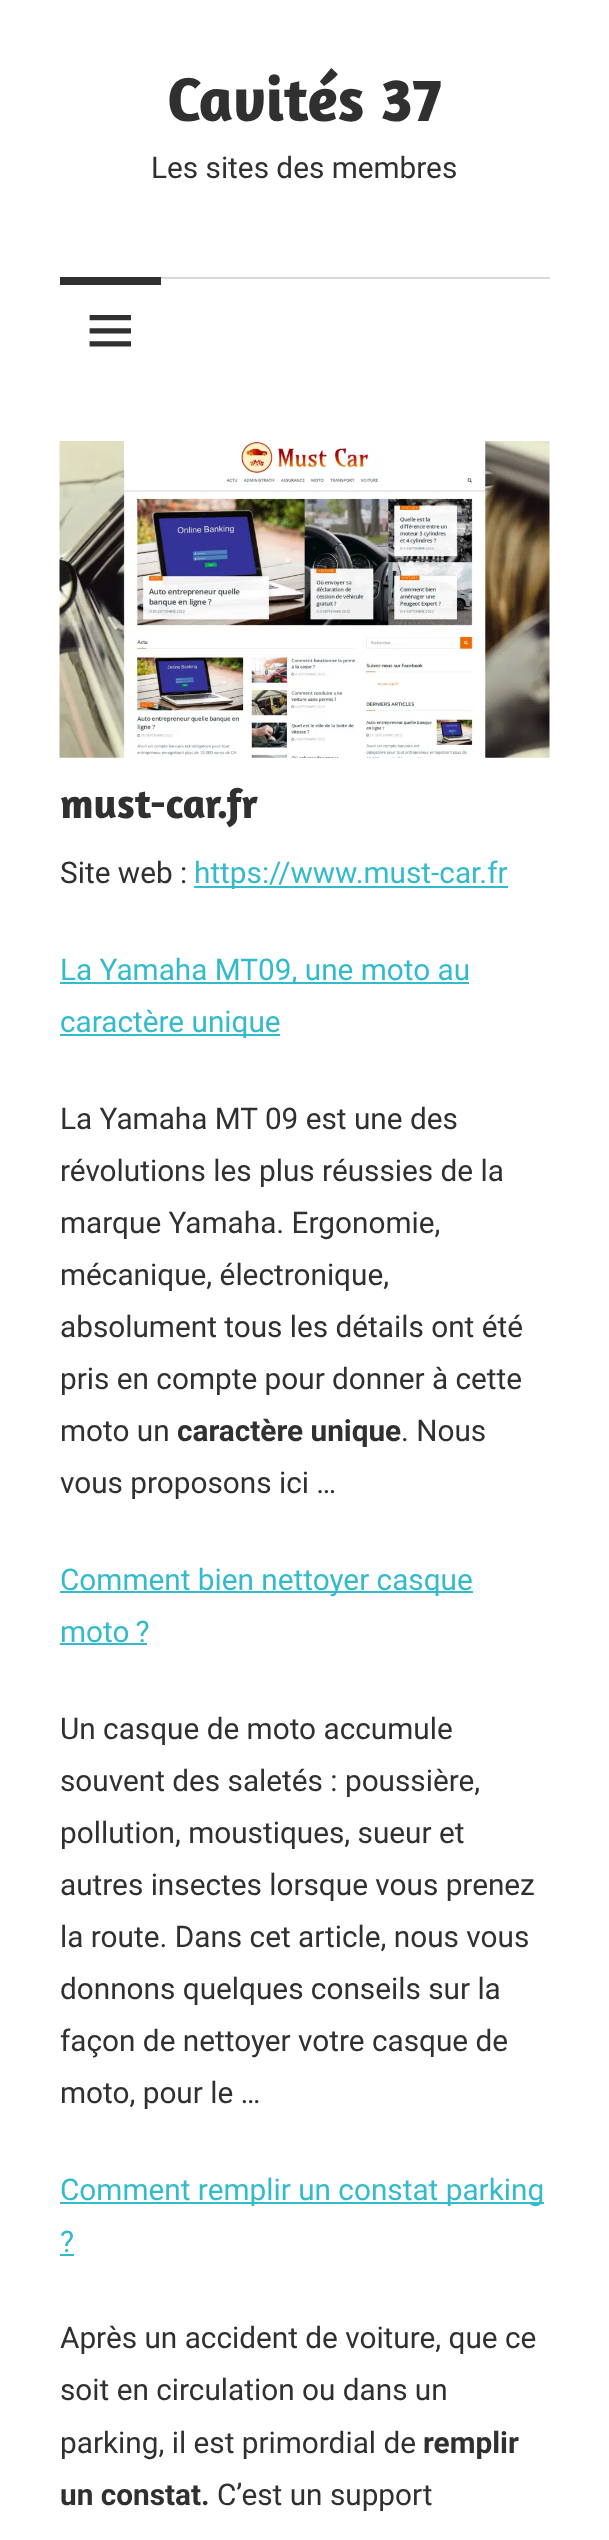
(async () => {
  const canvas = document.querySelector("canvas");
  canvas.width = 609;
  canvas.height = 2540;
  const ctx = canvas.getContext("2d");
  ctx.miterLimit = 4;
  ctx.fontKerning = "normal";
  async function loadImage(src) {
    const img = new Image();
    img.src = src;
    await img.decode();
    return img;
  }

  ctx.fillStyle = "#ffffff";
  ctx.fillRect(0, 0, 609, 2540);
  ctx.fillStyle = "#d9d9d9";
  ctx.fillRect(161, 277, 389, 2);
  ctx.fillStyle = "#303030";
  ctx.fillRect(60, 277, 101, 8);
  ctx.drawImage(await loadImage("img/1.png"), 89, 315, 42, 32);
  ctx.drawImage(await loadImage("img/2.png"), 59, 441, 491, 317);
  for (const [x, y, w, h, color] of [
    [194, 886, 314, 2, "#33bbcc"],
    [60, 982, 409, 2, "#33bbcc"],
    [60, 1034, 220, 2, "#33bbcc"],
    [60, 1591, 413, 2, "#33bbcc"],
    [60, 1643, 87, 2, "#33bbcc"],
    [60, 2202, 484, 2, "#33bbcc"],
    [60, 2254, 14, 2, "#33bbcc"],
  ]) {
    ctx.fillStyle = color;
    ctx.fillRect(x, y, w, h);
  }
  ctx.font = "bold 63px Amaranth";
  ctx.fillStyle = "#303030";
  ctx.fillText("Cavités 37", 167, 121);
  ctx.font = "29.75px Roboto";
  ctx.fillText("Les sites des membres", 151, 178);
  ctx.font = "bold 42px Amaranth";
  ctx.fillText("must-car.fr", 60, 818);
  ctx.font = "29.75px Roboto";
  ctx.fillText("Site web :", 60, 883);
  ctx.fillStyle = "#33bbcc";
  for (const [text, x, y] of [
    ["https://www.must-car.fr", 194, 883],
    ["La Yamaha MT09, une moto au", 60, 980],
    ["caractère unique", 60, 1032],
  ]) {
    ctx.fillText(text, x, y);
  }
  ctx.fillStyle = "#303030";
  for (const [text, x, y] of [
    ["La Yamaha MT 09 est une des", 60, 1129],
    ["révolutions les plus réussies de la", 60, 1181],
    ["marque Yamaha. Ergonomie,", 60, 1233],
    ["mécanique, électronique,", 60, 1285],
    ["absolument tous les détails ont été", 60, 1337],
    ["pris en compte pour donner à cette", 60, 1389],
    ["moto un", 60, 1441],
  ]) {
    ctx.fillText(text, x, y);
  }
  ctx.font = "bold 29.75px Roboto";
  ctx.fillText("caractère unique", 177, 1441);
  ctx.font = "29.75px Roboto";
  ctx.fillText(". Nous", 401, 1441);
  ctx.fillText("vous proposons ici …", 60, 1493);
  ctx.fillStyle = "#33bbcc";
  ctx.fillText("Comment bien nettoyer casque", 60, 1590);
  ctx.fillText("moto ?", 60, 1642);
  ctx.fillStyle = "#303030";
  for (const [text, x, y] of [
    ["Un casque de moto accumule", 60, 1739],
    ["souvent des saletés : poussière,", 60, 1791],
    ["pollution, moustiques, sueur et", 60, 1843],
    ["autres insectes lorsque vous prenez", 60, 1895],
    ["la route. Dans cet article, nous vous", 60, 1947],
    ["donnons quelques conseils sur la", 60, 1999],
    ["façon de nettoyer votre casque de", 60, 2051],
    ["moto, pour le …", 60, 2103],
  ]) {
    ctx.fillText(text, x, y);
  }
  ctx.fillStyle = "#33bbcc";
  ctx.fillText("Comment remplir un constat parking", 60, 2200);
  ctx.fillText("?", 60, 2252);
  ctx.fillStyle = "#303030";
  for (const [text, x, y] of [
    ["Après un accident de voiture, que ce", 60, 2348],
    ["soit en circulation ou dans un", 60, 2400],
    ["parking, il est primordial de", 60, 2453],
  ]) {
    ctx.fillText(text, x, y);
  }
  ctx.font = "bold 29.75px Roboto";
  ctx.fillText("remplir", 423, 2453);
  ctx.fillText("un constat.", 60, 2505);
  ctx.font = "29.75px Roboto";
  ctx.fillText("C’est un support", 217, 2505);
})();
